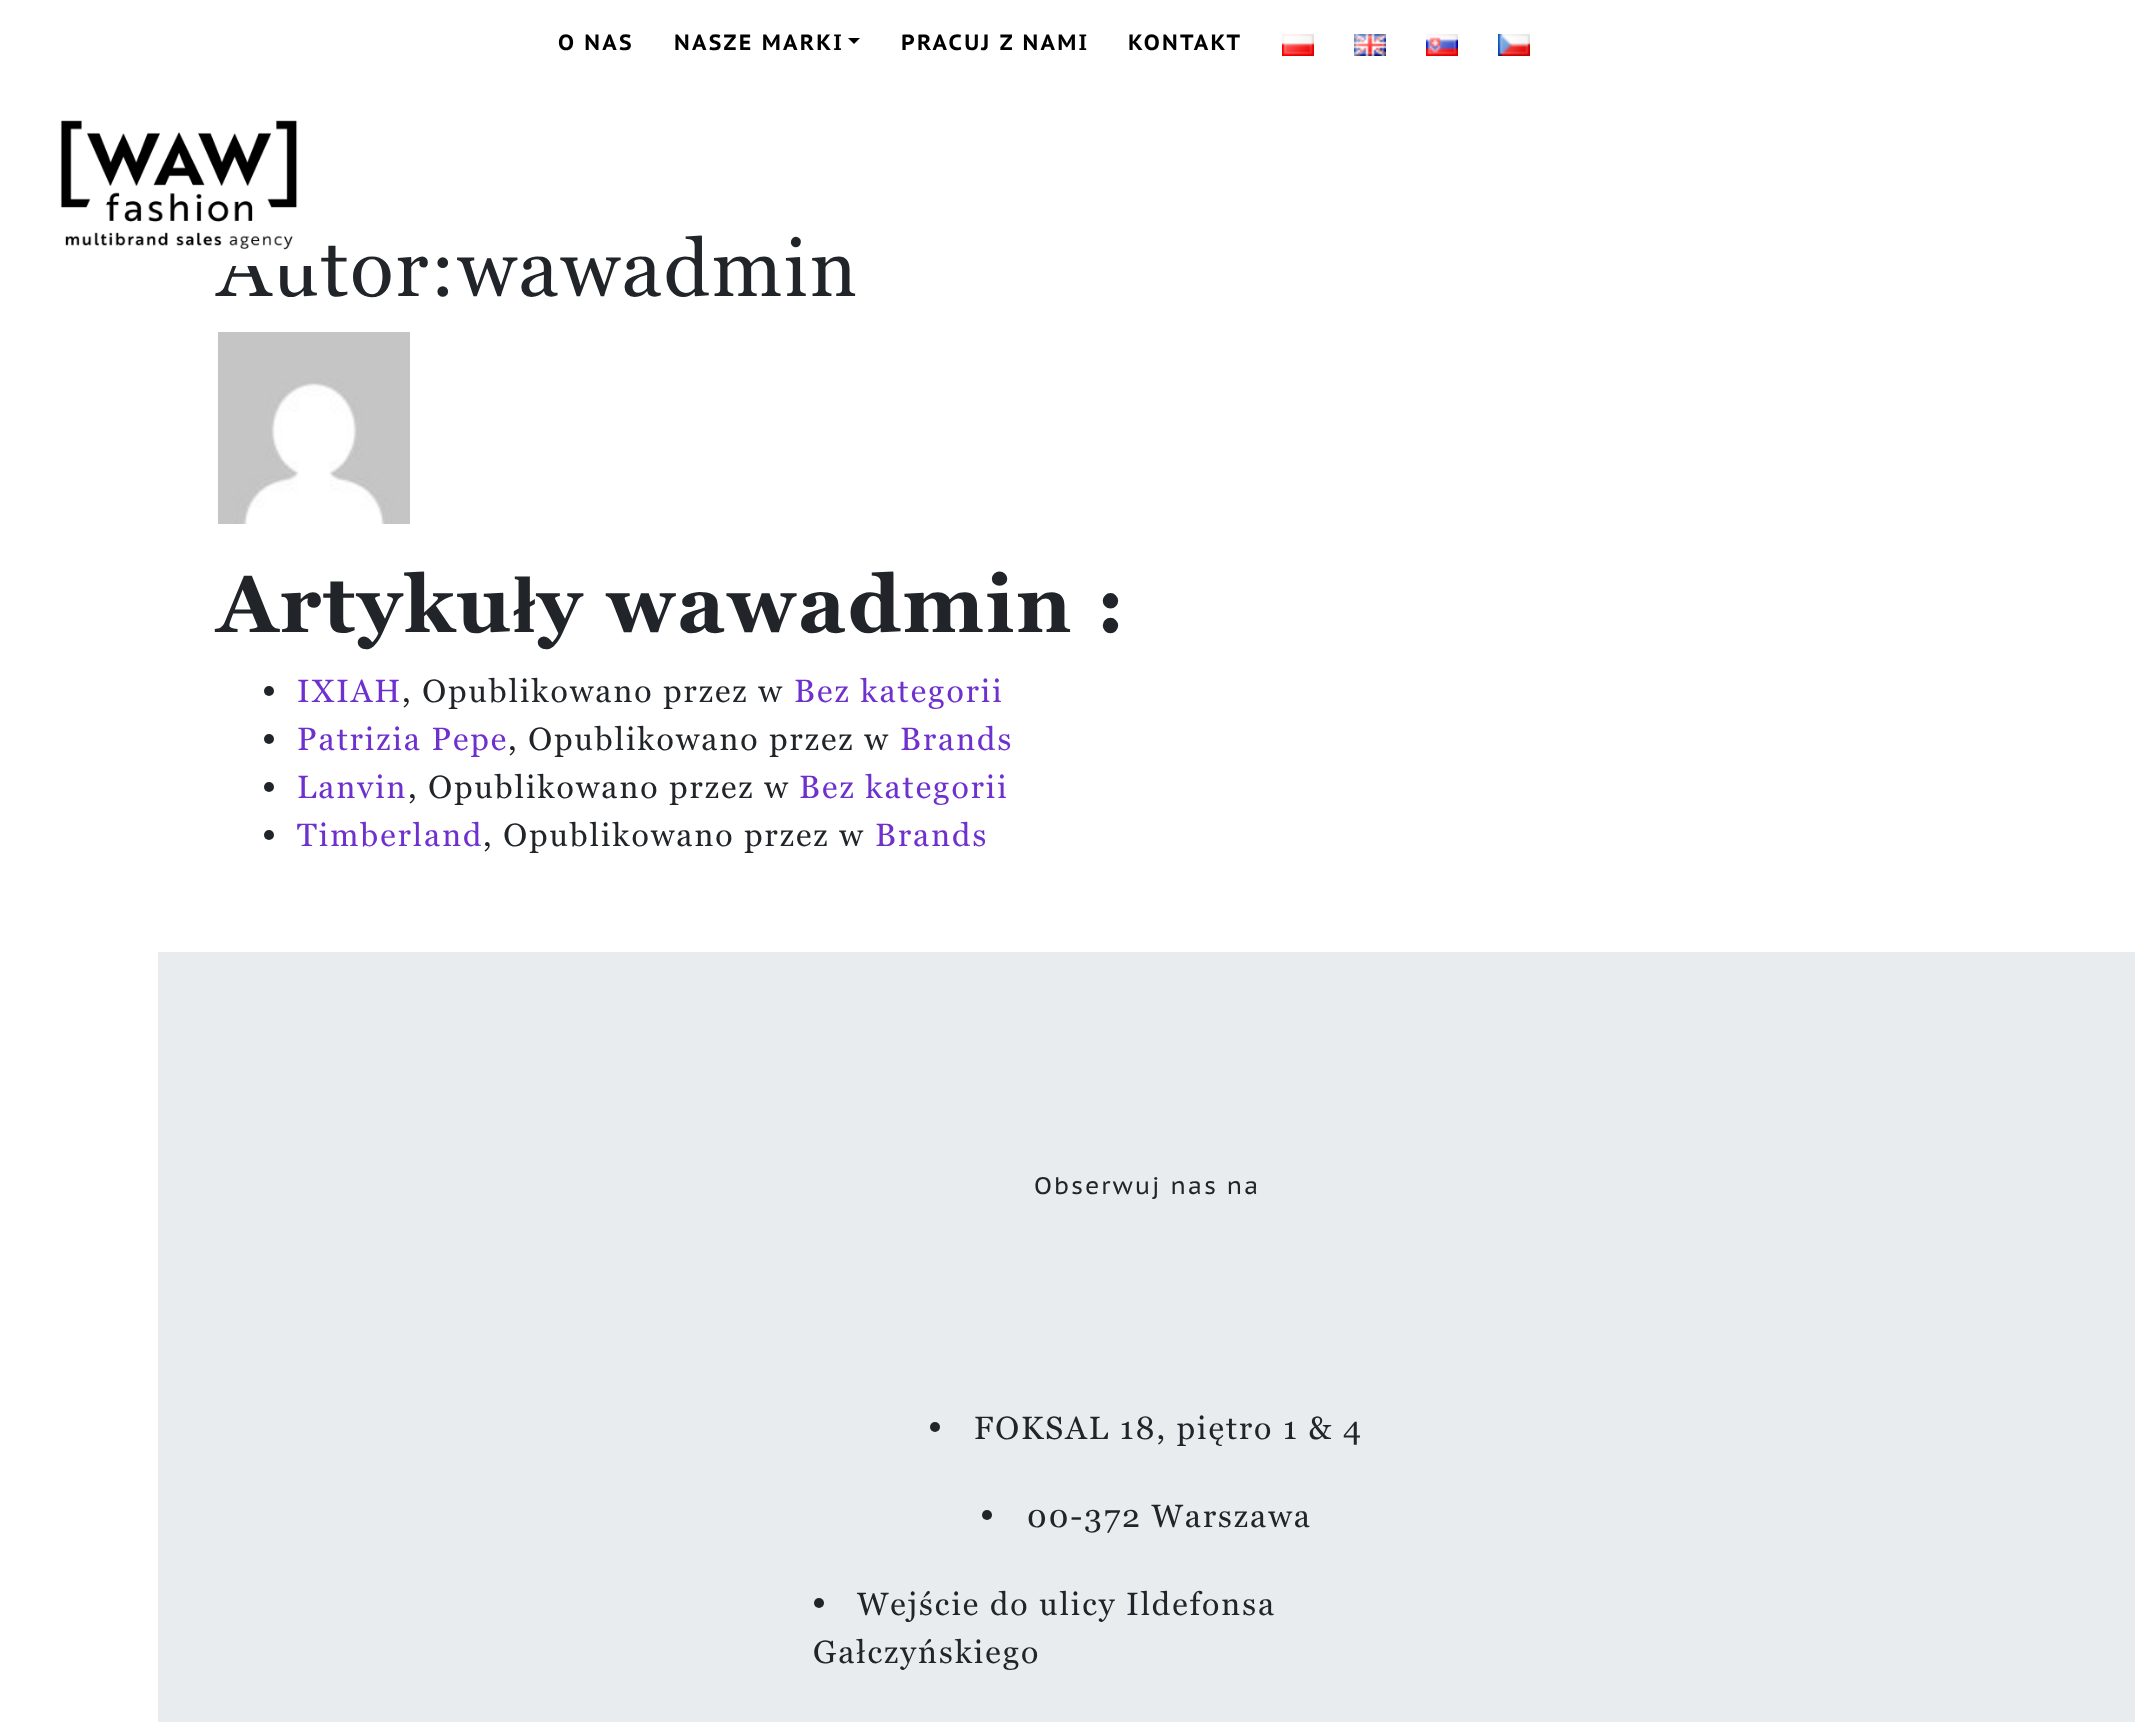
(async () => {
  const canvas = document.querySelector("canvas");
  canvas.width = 2135;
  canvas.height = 1722;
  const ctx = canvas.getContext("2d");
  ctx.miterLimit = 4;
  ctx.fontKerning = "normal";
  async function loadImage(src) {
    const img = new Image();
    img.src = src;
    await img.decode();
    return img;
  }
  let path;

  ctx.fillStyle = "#ffffff";
  ctx.fillRect(0, 0, 2135, 1722);
  ctx.fillStyle = "#000000";
  path = new Path2D("M848 38H860L854 44Z");
  ctx.fill(path);
  ctx.drawImage(await loadImage("img/1.png"), 1282, 34, 32, 22);
  ctx.drawImage(await loadImage("img/2.png"), 1354, 34, 32, 22);
  ctx.drawImage(await loadImage("img/3.png"), 1426, 34, 32, 22);
  ctx.drawImage(await loadImage("img/4.png"), 1498, 34, 32, 22);
  ctx.drawImage(await loadImage("img/6.png"), 218, 332, 192, 192);
  ctx.fillStyle = "#212529";
  ctx.beginPath();
  ctx.arc(269, 691, 5, 0, Math.PI * 2);
  ctx.fill();
  ctx.beginPath();
  ctx.arc(269, 739, 5, 0, Math.PI * 2);
  ctx.fill();
  ctx.beginPath();
  ctx.arc(269, 787, 5, 0, Math.PI * 2);
  ctx.fill();
  ctx.beginPath();
  ctx.arc(269, 835, 5, 0, Math.PI * 2);
  ctx.fill();
  ctx.fillStyle = "#e9ecef";
  ctx.fillRect(158, 952, 1977, 770);
  ctx.fillStyle = "#212529";
  ctx.beginPath();
  ctx.arc(935, 1427, 5, 0, Math.PI * 2);
  ctx.fill();
  ctx.beginPath();
  ctx.arc(987, 1515, 5, 0, Math.PI * 2);
  ctx.fill();
  ctx.beginPath();
  ctx.arc(819, 1603, 5, 0, Math.PI * 2);
  ctx.fill();
  ctx.letterSpacing = "2.25px";
  ctx.font = "bold 22px PT Sans Caption";
  ctx.fillStyle = "#000000";
  for (const [text, x, y] of [
    ["O NAS", 558, 50],
    ["NASZE MARKI", 674, 50],
    ["PRACUJ Z NAMI", 901, 50],
    ["KONTAKT", 1128, 50],
  ]) {
    ctx.fillText(text, x, y);
  }
  ctx.letterSpacing = "2px";
  ctx.font = "80px Georgia";
  ctx.fillStyle = "#212529";
  ctx.fillText("Autor:wawadmin", 217, 296);
  ctx.drawImage(await loadImage("img/5.png"), 60, 120, 251, 146);
  ctx.font = "bold 80px Georgia";
  ctx.fillText("Artyku", 217, 632);
  ctx.font = "bold 80px Liberation Serif";
  ctx.fillText("ł", 513, 632);
  ctx.font = "bold 80px Georgia";
  ctx.fillText("y wawadmin :", 537, 632);
  ctx.font = "32px Georgia";
  ctx.fillStyle = "#6f31cd";
  ctx.fillText("IXIAH", 297, 702);
  ctx.fillStyle = "#212529";
  ctx.fillText(", Opublikowano przez w", 402, 702);
  ctx.fillStyle = "#6f31cd";
  ctx.fillText("Bez kategorii", 794, 702);
  ctx.fillText("Patrizia Pepe", 297, 750);
  ctx.fillStyle = "#212529";
  ctx.fillText(", Opublikowano przez w", 508, 750);
  ctx.fillStyle = "#6f31cd";
  ctx.fillText("Brands", 900, 750);
  ctx.fillText("Lanvin", 297, 798);
  ctx.fillStyle = "#212529";
  ctx.fillText(", Opublikowano przez w", 408, 798);
  ctx.fillStyle = "#6f31cd";
  ctx.fillText("Bez kategorii", 799, 798);
  ctx.fillText("Timberland", 297, 846);
  ctx.fillStyle = "#212529";
  ctx.fillText(", Opublikowano przez w", 483, 846);
  ctx.fillStyle = "#6f31cd";
  ctx.fillText("Brands", 875, 846);
  ctx.font = "24px PT Sans Caption";
  ctx.fillStyle = "#212529";
  ctx.fillText("Obserwuj nas na", 1034, 1194);
  ctx.font = "32px Georgia";
  for (const [text, x, y] of [
    ["FOKSAL 18, piętro 1 & 4", 974, 1439],
    ["00-372 Warszawa", 1027, 1527],
    ["Wejście do ulicy Ildefonsa", 857, 1615],
    ["Gałczyńskiego", 813, 1663],
  ]) {
    ctx.fillText(text, x, y);
  }
})();
